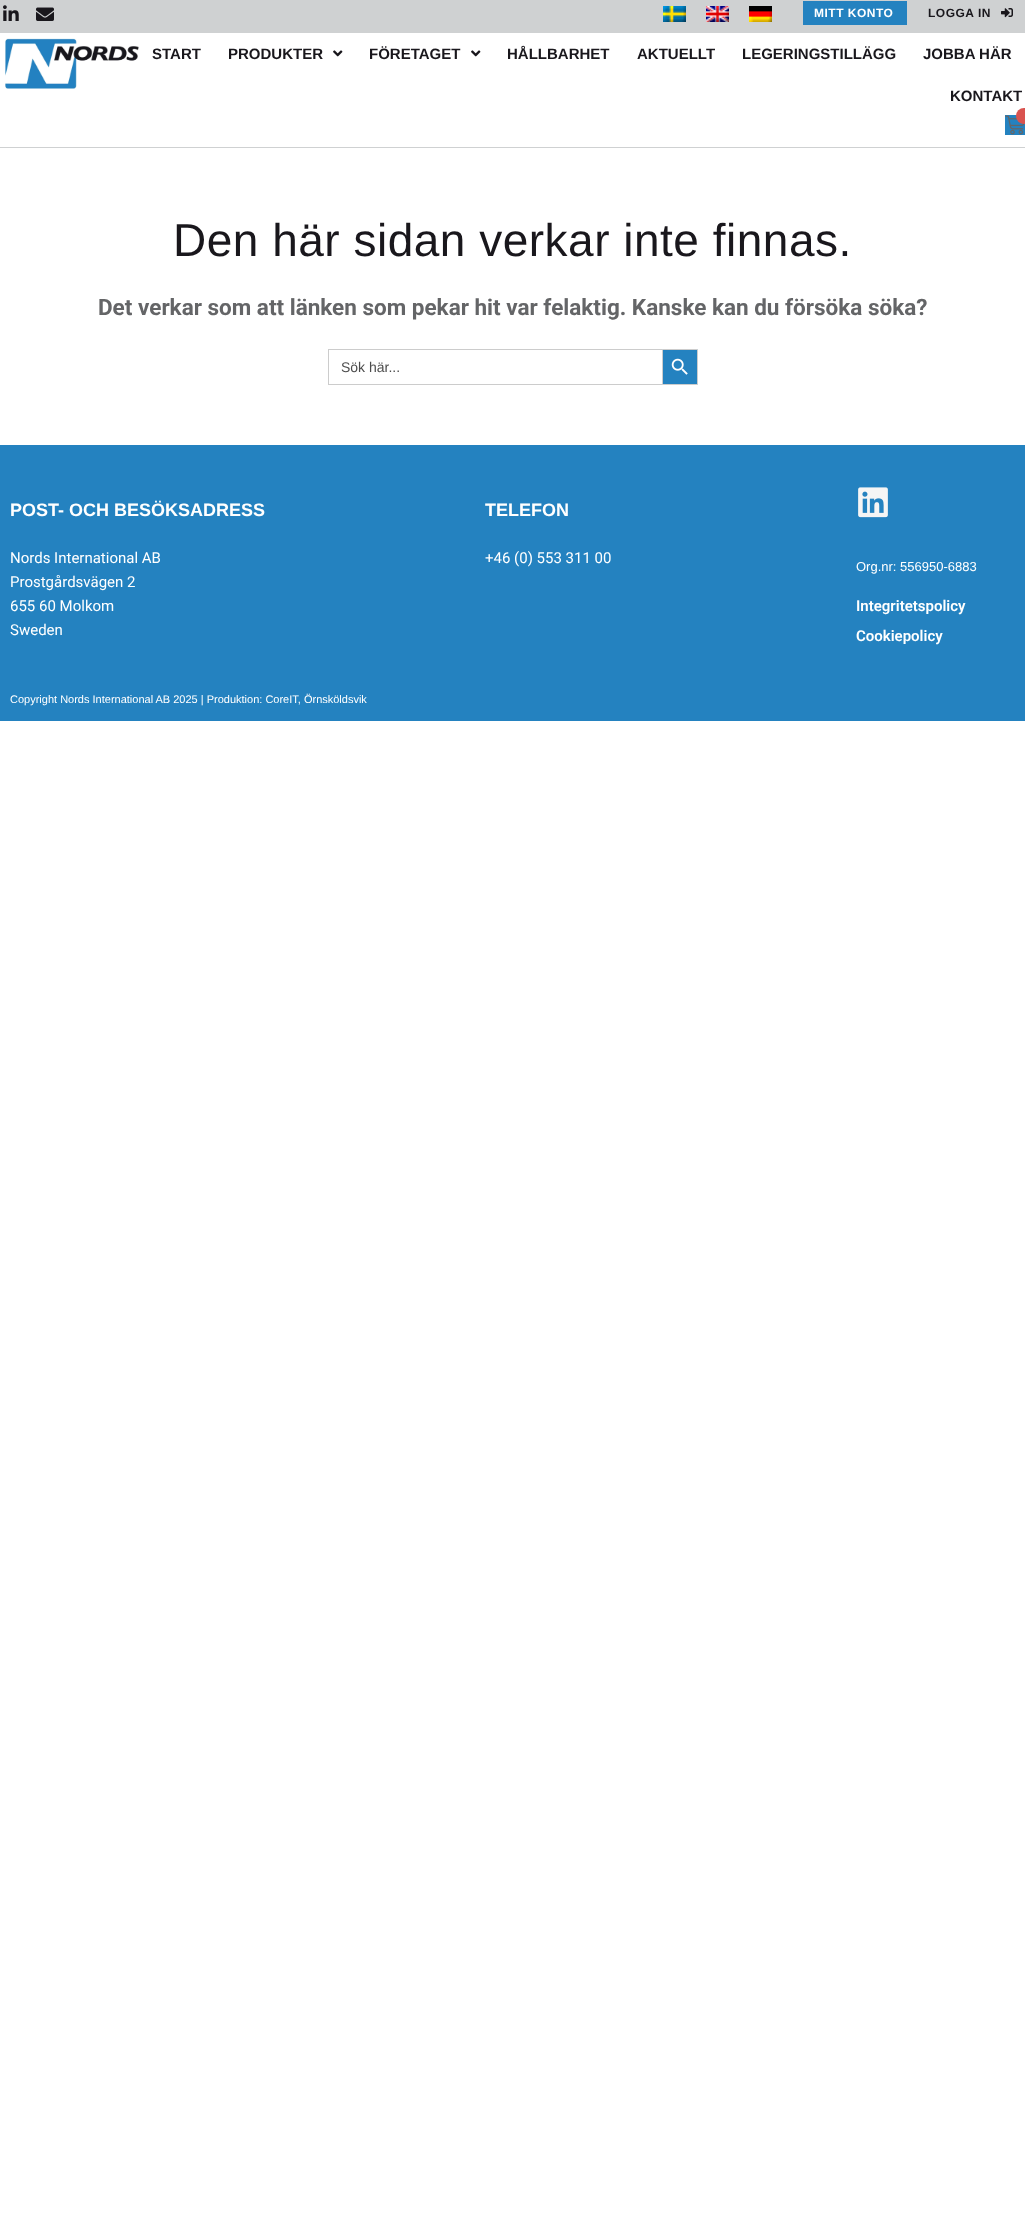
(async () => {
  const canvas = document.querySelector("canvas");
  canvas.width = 1025;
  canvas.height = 2234;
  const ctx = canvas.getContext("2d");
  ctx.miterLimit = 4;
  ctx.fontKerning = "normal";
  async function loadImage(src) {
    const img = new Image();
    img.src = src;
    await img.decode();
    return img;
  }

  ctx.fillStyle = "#ffffff";
  ctx.fillRect(0, 0, 1025, 2234);
  ctx.fillStyle = "#cfd1d2";
  ctx.fillRect(0, 0, 1025, 33);
  ctx.drawImage(await loadImage("img/1.png"), 3, 5, 16, 16);
  ctx.drawImage(await loadImage("img/2.png"), 36, 7, 18, 14);
  ctx.drawImage(await loadImage("img/3.png"), 663, 6, 23, 16);
  ctx.drawImage(await loadImage("img/4.png"), 706, 6, 23, 16);
  ctx.drawImage(await loadImage("img/5.png"), 749, 6, 23, 16);
  ctx.fillStyle = "#2482c0";
  ctx.fillRect(803, 1, 104, 24);
  ctx.drawImage(await loadImage("img/6.png"), 1001, 8, 12, 10);
  ctx.fillStyle = "#cfd1d2";
  ctx.fillRect(0, 147, 1025, 1);
  ctx.drawImage(await loadImage("img/7.png"), 5, 38, 134, 51);
  ctx.drawImage(await loadImage("img/8.png"), 333, 50, 10, 7);
  ctx.drawImage(await loadImage("img/8.png"), 471, 50, 10, 7);
  ctx.fillStyle = "#2482c0";
  ctx.fillRect(1005, 115, 20, 20);
  ctx.drawImage(await loadImage("img/9.png"), 1005, 115, 20, 20);
  ctx.fillStyle = "#d9534f";
  ctx.beginPath();
  ctx.arc(1024, 116, 8, 0, Math.PI * 2);
  ctx.fill();
  for (const [x, y, w, h, color] of [
    [328, 349, 334, 1, "#cccccc"],
    [328, 384, 334, 1, "#cccccc"],
    [328, 349, 1, 36, "#cccccc"],
  ]) {
    ctx.fillStyle = color;
    ctx.fillRect(x, y, w, h);
  }
  ctx.fillStyle = "#2482c0";
  ctx.beginPath();
  ctx.rect(662.5, 349.5, 35, 35);
  ctx.fill();
  ctx.strokeStyle = "#cccccc";
  ctx.stroke();
  ctx.drawImage(await loadImage("img/10.png"), 671, 358, 17, 17);
  ctx.fillRect(0, 445, 1025, 276);
  ctx.drawImage(await loadImage("img/11.png"), 858, 487, 30, 31);
  ctx.letterSpacing = "0.5px";
  ctx.font = "bold 12px Liberation Sans";
  ctx.fillStyle = "#ffffff";
  ctx.fillText("MITT KONTO", 814, 17);
  ctx.fillStyle = "#19171c";
  ctx.fillText("LOGGA IN", 928, 17);
  ctx.letterSpacing = "0px";
  ctx.font = "bold 15px Liberation Sans";
  for (const [text, x, y] of [
    ["START", 152, 59],
    ["PRODUKTER", 228, 59],
    ["FÖRETAGET", 369, 59],
    ["HÅLLBARHET", 507, 59],
    ["AKTUELLT", 637, 59],
    ["LEGERINGSTILLÄGG", 742, 59],
    ["JOBBA HÄR", 923, 59],
    ["KONTAKT", 950, 101],
  ]) {
    ctx.fillText(text, x, y);
  }
  ctx.letterSpacing = "0.5px";
  ctx.font = "46px Liberation Sans";
  ctx.fillText("Den här sidan verkar inte finnas.", 173, 256);
  ctx.letterSpacing = "0px";
  ctx.font = "bold 22.5px Roboto";
  ctx.fillStyle = "#646567";
  ctx.fillText("Det verkar som att länken som pekar hit var felaktig. Kanske kan du försöka söka?", 98, 315);
  ctx.font = "14px Liberation Sans";
  ctx.fillStyle = "#4c4c4c";
  ctx.fillText("Sök här...", 341, 372);
  ctx.font = "bold 18px Liberation Sans";
  ctx.fillStyle = "#ffffff";
  ctx.fillText("POST- OCH BESÖKSADRESS", 10, 516);
  ctx.font = "15px Roboto";
  for (const [text, x, y] of [
    ["Nords International AB", 10, 563],
    ["Prostgårdsvägen 2", 10, 587],
    ["655 60 Molkom", 10, 611],
    ["Sweden", 10, 635],
  ]) {
    ctx.fillText(text, x, y);
  }
  ctx.font = "bold 18px Liberation Sans";
  ctx.fillText("TELEFON", 485, 516);
  ctx.font = "15px Roboto";
  ctx.fillText("+46 (0) 553 311 00", 485, 563);
  ctx.font = "13px Liberation Sans";
  ctx.fillText("Org.nr: 556950-6883", 856, 571);
  ctx.font = "600 15px Roboto";
  ctx.fillText("Integritetspolicy", 856, 611);
  ctx.fillText("Cookiepolicy", 856, 641);
  ctx.font = "11px Liberation Sans";
  ctx.fillText("Copyright Nords International AB 2025 | Produktion: CoreIT, Örnsköldsvik", 10, 703);
})();
